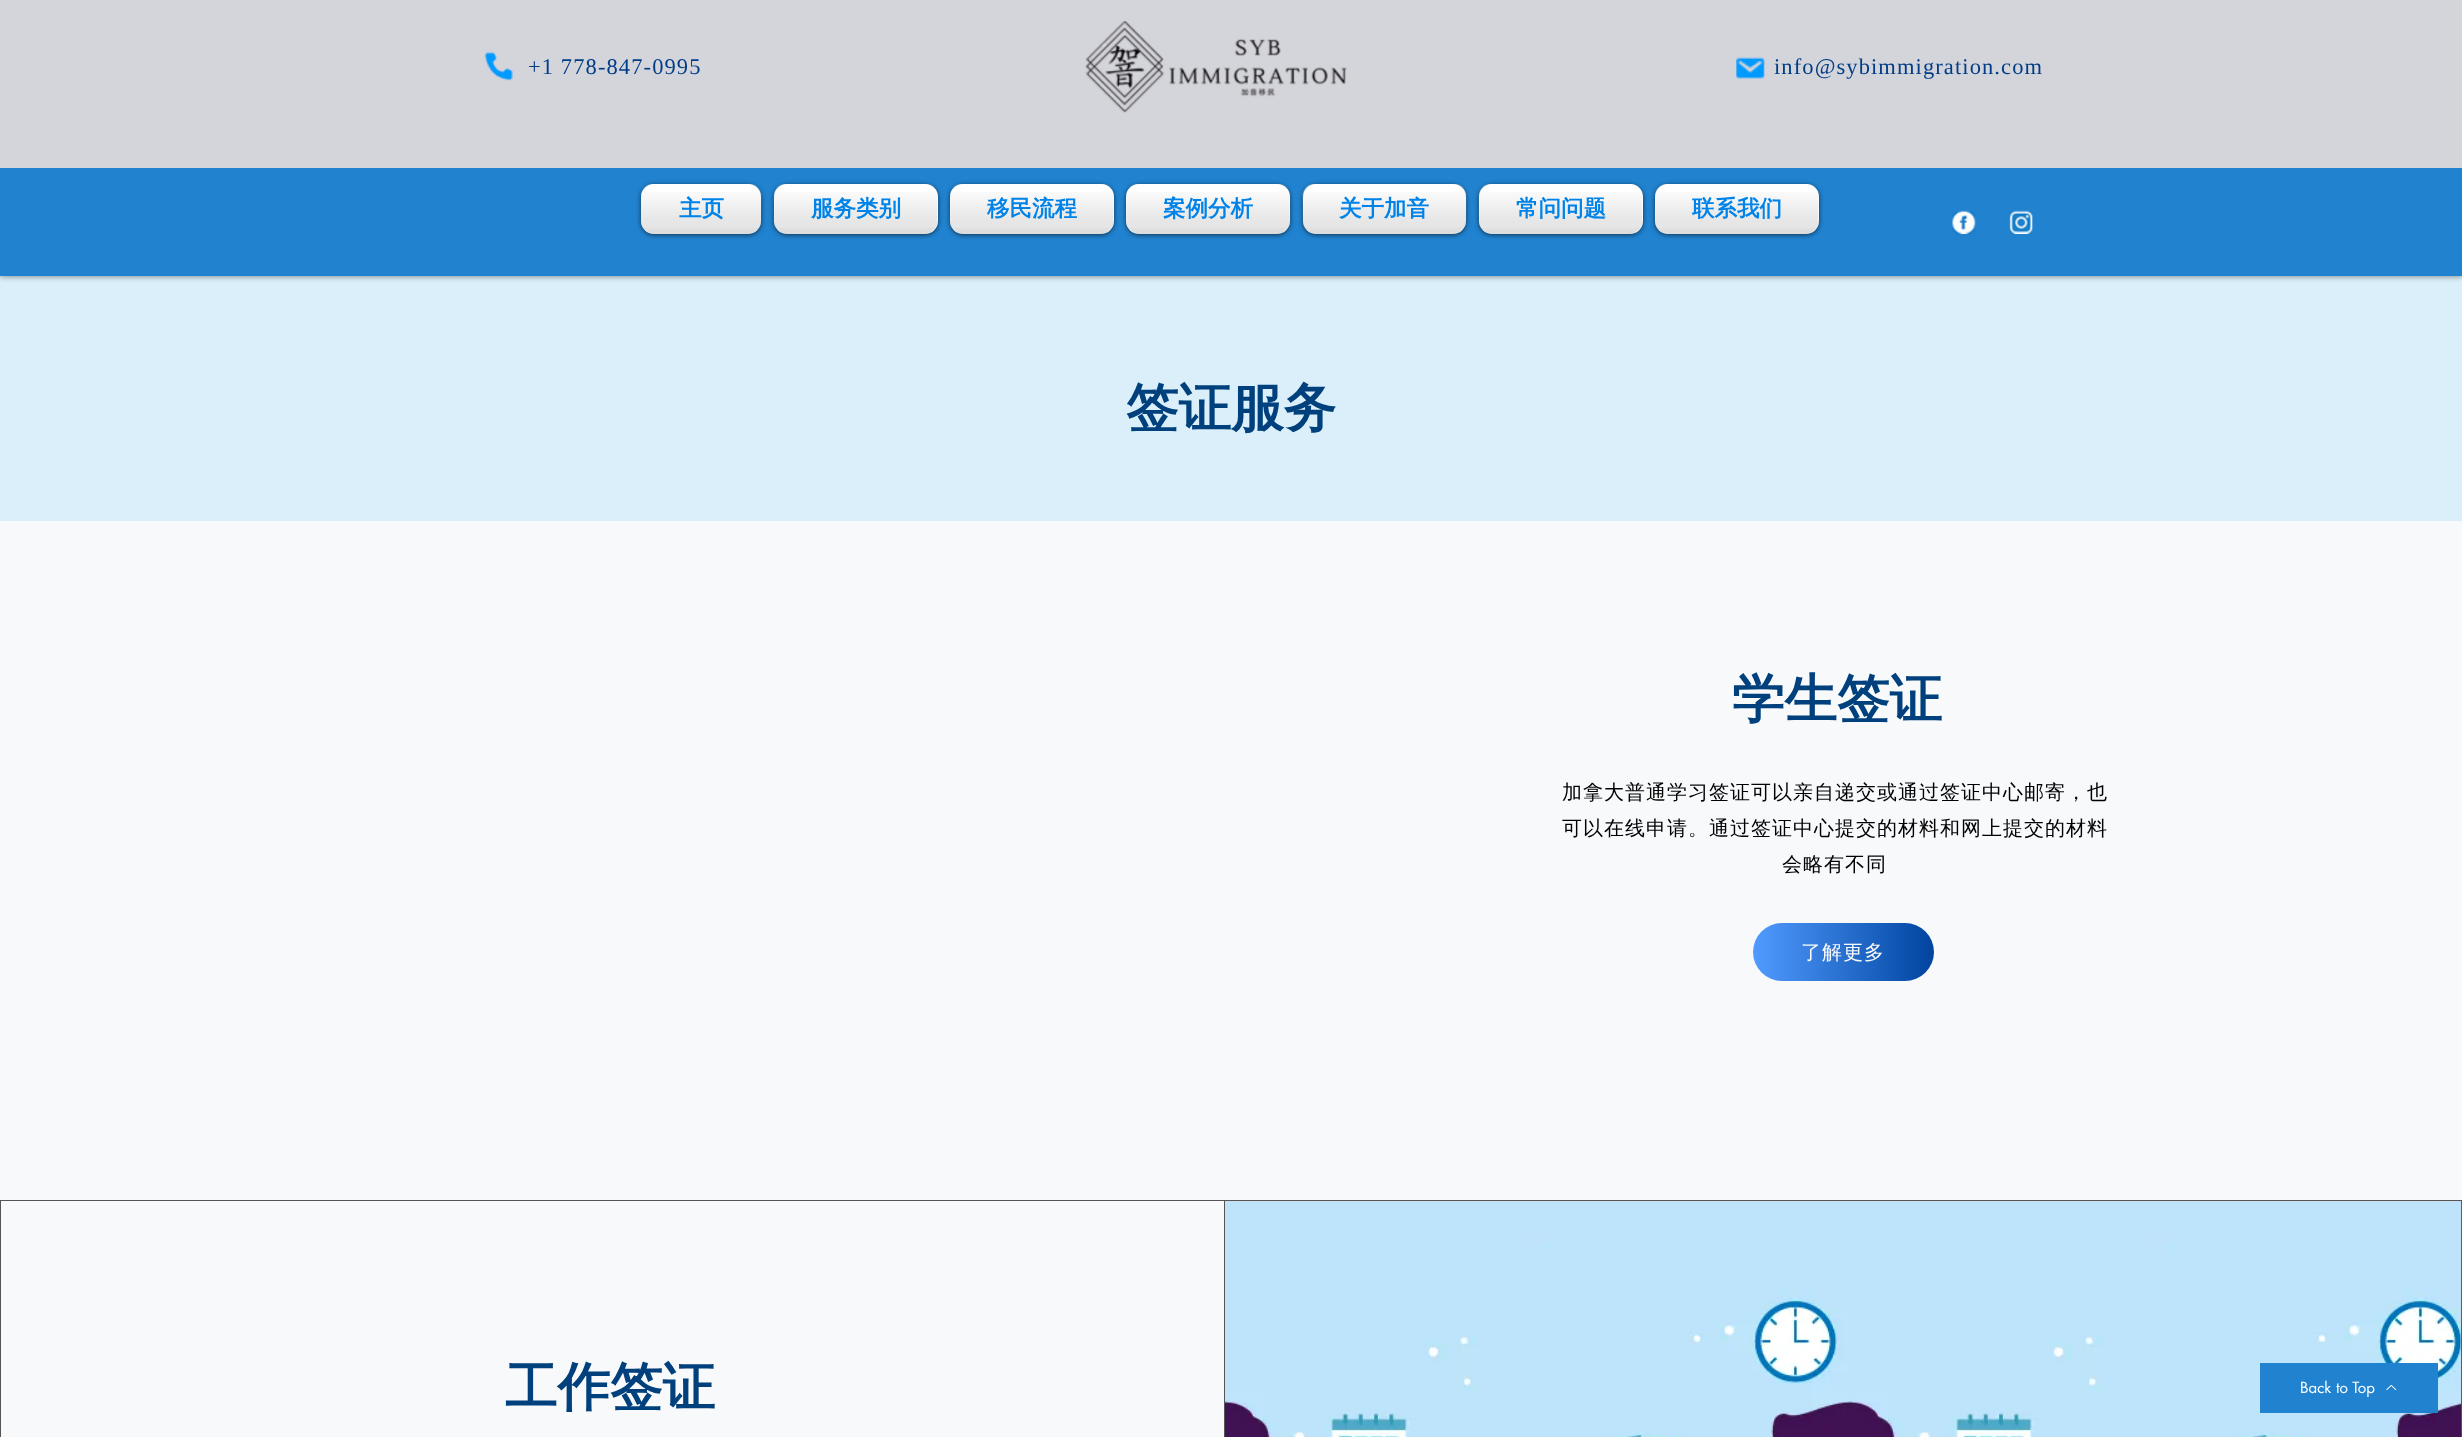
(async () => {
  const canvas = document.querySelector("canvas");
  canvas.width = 2462;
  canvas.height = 1437;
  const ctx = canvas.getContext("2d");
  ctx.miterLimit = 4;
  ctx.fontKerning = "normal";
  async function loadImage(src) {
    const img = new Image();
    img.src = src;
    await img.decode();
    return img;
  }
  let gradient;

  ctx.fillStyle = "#f8f9fb";
  ctx.fillRect(0, 0, 2462, 1437);
  ctx.fillStyle = "#daeff9";
  ctx.fillRect(0, 276, 2462, 245);
  ctx.fillStyle = "rgba(0, 0, 0, 0.5)";
  ctx.filter = "blur(3px)";
  ctx.beginPath();
  ctx.rect(0, 0, 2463, 276);
  ctx.fill();
  ctx.filter = "none";
  ctx.fillStyle = "#2183d0";
  ctx.fillRect(0, 168, 2462, 108);
  ctx.fillStyle = "#d4d4db";
  ctx.fillRect(0, 0, 2462, 168);
  ctx.drawImage(await loadImage("img/1.png"), 484, 50, 31, 31);
  ctx.drawImage(await loadImage("img/2.png"), 1085, 21, 262, 92);
  ctx.drawImage(await loadImage("img/3.png"), 1736, 57, 29, 22);
  ctx.fillStyle = "rgba(0, 0, 0, 0.6)";
  ctx.filter = "blur(2.5px)";
  ctx.beginPath();
  ctx.roundRect(641, 185, 120, 50, 13);
  ctx.fill();
  ctx.filter = "none";
  ctx.fillStyle = "#ffffff";
  ctx.beginPath();
  ctx.roundRect(641, 184, 120, 50, 13);
  ctx.fill();
  ctx.drawImage(await loadImage("img/4.png"), 641, 184, 121, 44);
  ctx.drawImage(await loadImage("img/5.png"), 641, 192, 121, 42);
  ctx.fillStyle = "rgba(0, 0, 0, 0.6)";
  ctx.filter = "blur(2.5px)";
  ctx.beginPath();
  ctx.roundRect(774, 185, 164, 50, 13);
  ctx.fill();
  ctx.filter = "none";
  ctx.fillStyle = "#ffffff";
  ctx.beginPath();
  ctx.roundRect(774, 184, 164, 50, 13);
  ctx.fill();
  ctx.drawImage(await loadImage("img/6.png"), 773, 184, 165, 47);
  ctx.drawImage(await loadImage("img/7.png"), 774, 192, 164, 42);
  ctx.fillStyle = "rgba(0, 0, 0, 0.6)";
  ctx.filter = "blur(2.5px)";
  ctx.beginPath();
  ctx.roundRect(950, 185, 164, 50, 13);
  ctx.fill();
  ctx.filter = "none";
  ctx.fillStyle = "#ffffff";
  ctx.beginPath();
  ctx.roundRect(950, 184, 164, 50, 13);
  ctx.fill();
  ctx.drawImage(await loadImage("img/8.png"), 950, 184, 164, 44);
  ctx.drawImage(await loadImage("img/9.png"), 950, 192, 164, 42);
  ctx.fillStyle = "rgba(0, 0, 0, 0.6)";
  ctx.filter = "blur(2.5px)";
  ctx.beginPath();
  ctx.roundRect(1126, 185, 164, 50, 13);
  ctx.fill();
  ctx.filter = "none";
  ctx.fillStyle = "#ffffff";
  ctx.beginPath();
  ctx.roundRect(1126, 184, 164, 50, 13);
  ctx.fill();
  ctx.drawImage(await loadImage("img/10.png"), 1126, 184, 165, 41);
  ctx.drawImage(await loadImage("img/11.png"), 1126, 192, 164, 42);
  ctx.fillStyle = "rgba(0, 0, 0, 0.6)";
  ctx.filter = "blur(2.5px)";
  ctx.beginPath();
  ctx.roundRect(1303, 185, 163, 50, 13);
  ctx.fill();
  ctx.filter = "none";
  ctx.fillStyle = "#ffffff";
  ctx.beginPath();
  ctx.roundRect(1303, 184, 163, 50, 13);
  ctx.fill();
  ctx.drawImage(await loadImage("img/12.png"), 1302, 184, 165, 47);
  ctx.drawImage(await loadImage("img/13.png"), 1302, 192, 165, 42);
  ctx.fillStyle = "rgba(0, 0, 0, 0.6)";
  ctx.filter = "blur(2.5px)";
  ctx.beginPath();
  ctx.roundRect(1479, 185, 164, 50, 13);
  ctx.fill();
  ctx.filter = "none";
  ctx.fillStyle = "#ffffff";
  ctx.beginPath();
  ctx.roundRect(1479, 184, 164, 50, 13);
  ctx.fill();
  ctx.drawImage(await loadImage("img/6.png"), 1478, 184, 165, 47);
  ctx.drawImage(await loadImage("img/7.png"), 1479, 192, 164, 42);
  ctx.fillStyle = "rgba(0, 0, 0, 0.6)";
  ctx.filter = "blur(2.5px)";
  ctx.beginPath();
  ctx.roundRect(1655, 185, 164, 50, 13);
  ctx.fill();
  ctx.filter = "none";
  ctx.fillStyle = "#ffffff";
  ctx.beginPath();
  ctx.roundRect(1655, 184, 164, 50, 13);
  ctx.fill();
  ctx.drawImage(await loadImage("img/14.png"), 1655, 184, 164, 44);
  ctx.drawImage(await loadImage("img/15.png"), 1655, 192, 164, 42);
  ctx.drawImage(await loadImage("img/16.png"), 1952, 210, 24, 24);
  ctx.drawImage(await loadImage("img/17.png"), 2009, 210, 24, 24);
  gradient = ctx.createLinearGradient(1753, 952, 1934, 952);
  gradient.addColorStop(0, "#c1deed");
  gradient.addColorStop(0, "#519bff");
  gradient.addColorStop(1, "#00449f");
  gradient.addColorStop(1, "#8c9cbd");
  ctx.fillStyle = gradient;
  ctx.beginPath();
  ctx.roundRect(1753, 923, 181, 58, 29);
  ctx.fill();
  for (const [x, y, w, h, color] of [
    [0, 1200, 2462, 237, "#555555"],
    [1, 1201, 1223, 236, "#f8f9fb"],
    [1225, 1201, 1236, 1, "#d5d6d9"],
  ]) {
    ctx.fillStyle = color;
    ctx.fillRect(x, y, w, h);
  }
  ctx.drawImage(await loadImage("img/18.png"), 1225, 1201, 1237, 236);
  ctx.fillStyle = "#2183d0";
  ctx.fillRect(2260, 1363, 178, 50);
  ctx.drawImage(await loadImage("img/19.png"), 2386, 1384, 11, 7);
  ctx.letterSpacing = "1.1px";
  ctx.font = "22.5px Liberation Serif";
  ctx.fillStyle = "#003d86";
  ctx.fillText("+1 778-847-0995", 528, 74);
  ctx.fillText("info@sybimmigration.com", 1774, 74);
  ctx.letterSpacing = "0px";
  ctx.font = "bold 22.5px WenQuanYi Zen Hei";
  ctx.fillStyle = "#0083e8";
  for (const [text, x, y] of [
    ["主页", 679, 216],
    ["服务类别", 811, 216],
    ["移民流程", 987, 216],
    ["案例分析", 1163, 216],
    ["关于加音", 1339, 216],
    ["常问问题", 1516, 216],
    ["联系我们", 1692, 216],
  ]) {
    ctx.fillText(text, x, y);
  }
  ctx.font = "bold 52.5px WenQuanYi Zen Hei";
  ctx.fillStyle = "#00407c";
  ctx.fillText("签证服务", 1126, 426);
  ctx.fillText("学生签证", 1732, 717);
  ctx.letterSpacing = "1px";
  ctx.font = "500 20px WenQuanYi Zen Hei";
  ctx.fillStyle = "#000000";
  for (const [text, x, y] of [
    ["加拿大普通学习签证可以亲自递交或通过签证中心邮寄，也", 1562, 799],
    ["可以在线申请。通过签证中心提交的材料和网上提交的材料", 1562, 835],
    ["会略有不同", 1782, 871],
  ]) {
    ctx.fillText(text, x, y);
  }
  ctx.fillStyle = "#f8f9fb";
  ctx.fillText("了解更多", 1801, 959);
  ctx.letterSpacing = "0px";
  ctx.font = "bold 52.5px WenQuanYi Zen Hei";
  ctx.fillStyle = "#00407c";
  ctx.fillText("工作签证", 505, 1405);
  ctx.font = "15px futura";
  ctx.fillStyle = "#ffffff";
  ctx.fillText("Back to Top", 2300, 1393);
})();
